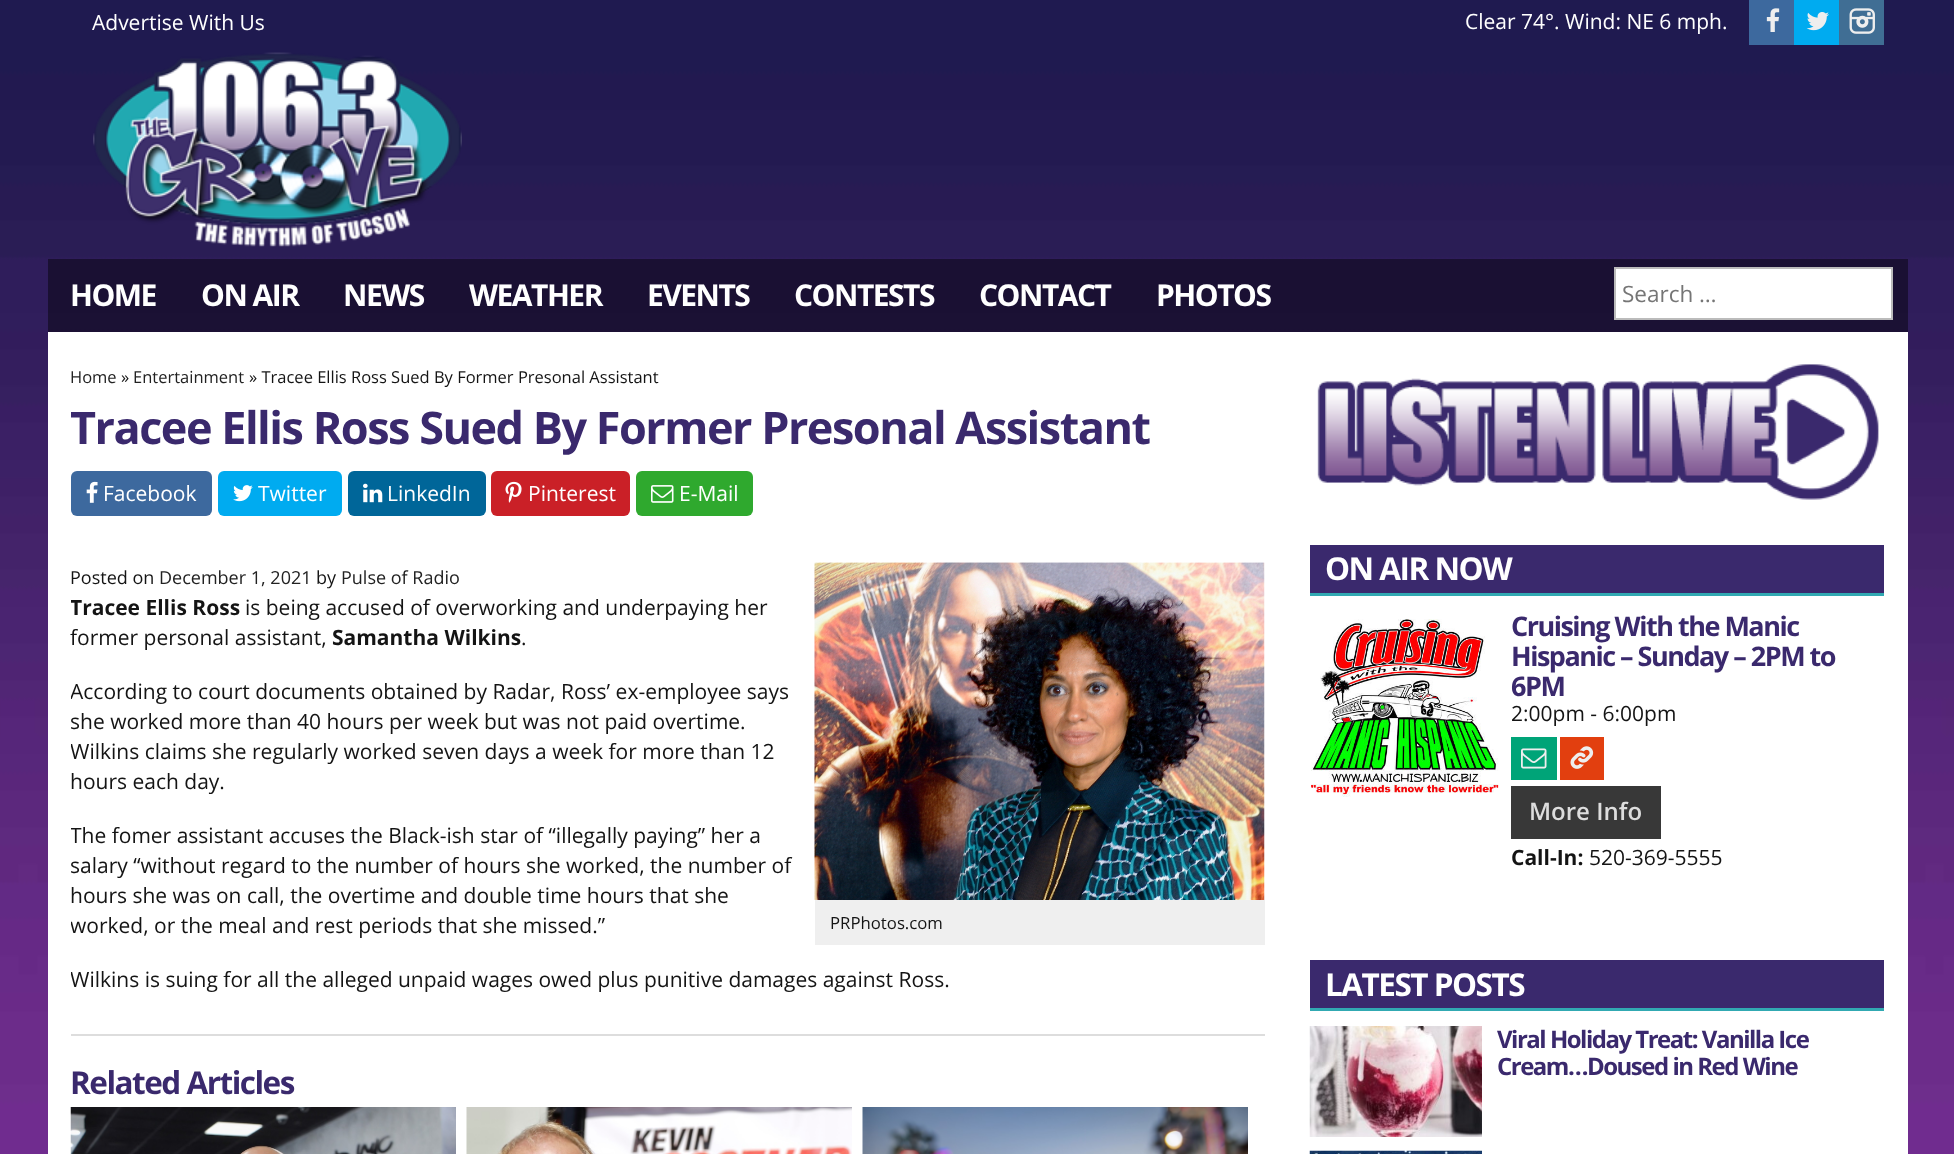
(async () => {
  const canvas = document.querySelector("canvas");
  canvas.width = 1954;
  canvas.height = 1154;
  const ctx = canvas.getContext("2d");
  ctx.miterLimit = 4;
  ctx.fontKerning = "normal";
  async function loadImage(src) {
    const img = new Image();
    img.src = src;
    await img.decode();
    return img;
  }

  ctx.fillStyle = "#ffffff";
  ctx.fillRect(0, 0, 1954, 1154);
  ctx.drawImage(await loadImage("img/1.png"), 0, 0, 1954, 1154);
  ctx.fillStyle = "#3d699e";
  ctx.fillRect(1749, 0, 45, 45);
  ctx.drawImage(await loadImage("img/2.png"), 1766, 8, 14, 24);
  ctx.fillStyle = "#00abf0";
  ctx.fillRect(1794, 0, 45, 45);
  ctx.drawImage(await loadImage("img/3.png"), 1806, 12, 23, 19);
  ctx.fillStyle = "#406e94";
  ctx.fillRect(1839, 0, 45, 45);
  ctx.drawImage(await loadImage("img/4.png"), 1849, 8, 26, 26);
  ctx.drawImage(await loadImage("img/5.png"), 93, 52, 369, 195);
  ctx.fillStyle = "rgba(0, 0, 0, 0.43)";
  ctx.fillRect(48, 259, 1860, 73);
  ctx.fillStyle = "#ffffff";
  ctx.beginPath();
  ctx.rect(1615, 268, 277, 51);
  ctx.fill();
  ctx.strokeStyle = "#bbbbbb";
  ctx.lineWidth = 2;
  ctx.stroke();
  ctx.fillRect(48, 332, 1860, 822);
  ctx.fillStyle = "#3d699e";
  ctx.beginPath();
  ctx.roundRect(71, 471, 141, 45, 6);
  ctx.fill();
  ctx.drawImage(await loadImage("img/6.png"), 86, 481, 12, 22);
  ctx.fillStyle = "#00abf0";
  ctx.beginPath();
  ctx.roundRect(218, 471, 124, 45, 6);
  ctx.fill();
  ctx.drawImage(await loadImage("img/7.png"), 233, 485, 20, 17);
  ctx.fillStyle = "#006699";
  ctx.beginPath();
  ctx.roundRect(348, 471, 138, 45, 6);
  ctx.fill();
  ctx.drawImage(await loadImage("img/8.png"), 363, 483, 20, 20);
  ctx.fillStyle = "#ca2027";
  ctx.beginPath();
  ctx.roundRect(491, 471, 139, 45, 6);
  ctx.fill();
  ctx.drawImage(await loadImage("img/9.png"), 505, 481, 17, 22);
  ctx.fillStyle = "#2fa92e";
  ctx.beginPath();
  ctx.roundRect(636, 471, 117, 45, 6);
  ctx.fill();
  ctx.drawImage(await loadImage("img/10.png"), 651, 485, 23, 18);
  ctx.drawImage(await loadImage("img/11.png"), 814, 562, 451, 338);
  ctx.fillStyle = "#efefef";
  ctx.fillRect(815, 900, 450, 45);
  ctx.fillStyle = "#dddddd";
  ctx.fillRect(71, 1034, 1194, 2);
  ctx.drawImage(await loadImage("img/12.png"), 70, 1107, 386, 47);
  ctx.drawImage(await loadImage("img/13.png"), 466, 1107, 386, 47);
  ctx.drawImage(await loadImage("img/14.png"), 862, 1107, 386, 47);
  ctx.drawImage(await loadImage("img/15.png"), 1317, 364, 562, 136);
  ctx.fillStyle = "#3a296d";
  ctx.fillRect(1310, 545, 574, 48);
  ctx.fillStyle = "#31a9b2";
  ctx.fillRect(1310, 593, 574, 3);
  ctx.drawImage(await loadImage("img/16.png"), 1311, 619, 188, 178);
  ctx.fillStyle = "#00a478";
  ctx.fillRect(1511, 737, 46, 43);
  ctx.drawImage(await loadImage("img/17.png"), 1521, 748, 26, 21);
  ctx.fillStyle = "#e23f0f";
  ctx.fillRect(1560, 737, 44, 43);
  ctx.drawImage(await loadImage("img/18.png"), 1570, 746, 24, 23);
  for (const [x, y, w, h, color] of [
    [1511, 786, 150, 53, "#383838"],
    [1310, 960, 574, 48, "#3a296d"],
    [1310, 1008, 574, 3, "#31a9b2"],
  ]) {
    ctx.fillStyle = color;
    ctx.fillRect(x, y, w, h);
  }
  ctx.drawImage(await loadImage("img/19.png"), 1309, 1026, 173, 111);
  ctx.drawImage(await loadImage("img/20.png"), 1309, 1150, 173, 4);
  ctx.font = "21px Open Sans";
  ctx.fillStyle = "#ffffff";
  ctx.fillText("Advertise With Us", 92, 30);
  ctx.fillText("Clear 74°. Wind: NE 6 mph.", 1465, 29);
  ctx.letterSpacing = "-1.5px";
  ctx.font = "bold 30px Open Sans";
  for (const [text, x, y] of [
    ["HOME", 70, 306],
    ["ON AIR", 201, 306],
    ["NEWS", 343, 306],
    ["WEATHER", 469, 306],
    ["EVENTS", 647, 306],
    ["CONTESTS", 794, 306],
    ["CONTACT", 979, 306],
    ["PHOTOS", 1156, 306],
  ]) {
    ctx.fillText(text, x, y);
  }
  ctx.letterSpacing = "0px";
  ctx.font = "22.5px Open Sans";
  ctx.fillStyle = "#757575";
  ctx.fillText("Search …", 1622, 302);
  ctx.font = "16.5px Open Sans";
  ctx.fillStyle = "#222222";
  ctx.fillText("Home", 70, 383);
  ctx.fillStyle = "#141414";
  ctx.fillText("»", 121, 383);
  ctx.fillStyle = "#222222";
  ctx.fillText("Entertainment", 133, 383);
  ctx.fillStyle = "#141414";
  ctx.fillText("» Tracee Ellis Ross Sued By Former Presonal Assistant", 249, 383);
  ctx.save();
  ctx.beginPath();
  ctx.rect(71, 332, 1194, 687);
  ctx.clip();
  ctx.letterSpacing = "-1.5px";
  ctx.font = "bold 45px Open Sans";
  ctx.fillStyle = "#3a296d";
  ctx.fillText("Tracee Ellis Ross Sued By Former Presonal Assistant", 70, 444);
  ctx.restore();
  ctx.font = "21px Open Sans";
  ctx.fillStyle = "#ffffff";
  for (const [text, x, y] of [
    ["Facebook", 103, 501],
    ["Twitter", 258, 501],
    ["LinkedIn", 387, 501],
    ["Pinterest", 528, 501],
    ["E-Mail", 679, 501],
  ]) {
    ctx.fillText(text, x, y);
  }
  ctx.font = "18px Open Sans";
  ctx.fillStyle = "#141414";
  ctx.fillText("Posted on", 70, 584);
  ctx.fillStyle = "#222222";
  ctx.fillText("December 1, 2021", 159, 584);
  ctx.fillStyle = "#141414";
  ctx.fillText("by", 316, 584);
  ctx.fillStyle = "#222222";
  ctx.fillText("Pulse of Radio", 341, 584);
  ctx.save();
  ctx.beginPath();
  ctx.rect(71, 332, 1194, 687);
  ctx.clip();
  ctx.font = "bold 21px Open Sans";
  ctx.fillStyle = "#141414";
  ctx.fillText("Tracee Ellis Ross", 70, 615);
  ctx.restore();
  ctx.font = "21px Open Sans";
  ctx.fillStyle = "#141414";
  ctx.fillText("is being accused of overworking and underpaying her", 245, 615);
  ctx.fillText("former personal assistant,", 70, 645);
  ctx.font = "bold 21px Open Sans";
  ctx.fillText("Samantha Wilkins", 332, 645);
  ctx.font = "21px Open Sans";
  ctx.fillText(".", 521, 645);
  ctx.save();
  ctx.beginPath();
  ctx.rect(71, 332, 1194, 687);
  ctx.clip();
  for (const [text, x, y] of [
    ["According to court documents obtained by Radar, Ross’ ex-employee says", 70, 699],
    ["she worked more than 40 hours per week but was not paid overtime.", 70, 729],
    ["Wilkins claims she regularly worked seven days a week for more than 12", 70, 759],
  ]) {
    ctx.fillText(text, x, y);
  }
  ctx.restore();
  ctx.fillText("hours each day.", 70, 789);
  ctx.save();
  ctx.beginPath();
  ctx.rect(71, 332, 1194, 687);
  ctx.clip();
  ctx.fillText("The fomer assistant accuses the Black-ish star of “illegally paying” her a", 70, 843);
  ctx.fillText("salary “without regard to the number of hours she worked, the number of", 70, 873);
  ctx.restore();
  ctx.fillText("hours she was on call, the overtime and double time hours that she", 70, 903);
  ctx.save();
  ctx.beginPath();
  ctx.rect(71, 332, 1194, 687);
  ctx.clip();
  ctx.fillText("worked, or the meal and rest periods that she missed.”", 70, 933);
  ctx.restore();
  ctx.font = "16.75px Open Sans";
  ctx.fillText("PRPhotos.com", 830, 929);
  ctx.save();
  ctx.beginPath();
  ctx.rect(71, 332, 1194, 687);
  ctx.clip();
  ctx.font = "21px Open Sans";
  ctx.fillText("Wilkins is suing for all the alleged unpaid wages owed plus punitive damages against Ross.", 70, 987);
  ctx.restore();
  ctx.letterSpacing = "-1.5px";
  ctx.font = "bold 31.5px Open Sans";
  ctx.fillStyle = "#3a296d";
  ctx.fillText("Related Articles", 70, 1094);
  ctx.fillStyle = "#ffffff";
  ctx.fillText("ON AIR NOW", 1325, 580);
  ctx.font = "bold 27px Open Sans";
  ctx.fillStyle = "#3a296d";
  for (const [text, x, y] of [
    ["Cruising With the Manic", 1511, 636],
    ["Hispanic – Sunday – 2PM to", 1511, 666],
    ["6PM", 1511, 696],
  ]) {
    ctx.fillText(text, x, y);
  }
  ctx.letterSpacing = "0px";
  ctx.font = "21px Open Sans";
  ctx.fillStyle = "#141414";
  ctx.fillText("2:00pm - 6:00pm", 1511, 721);
  ctx.font = "600 24px Open Sans";
  ctx.fillStyle = "#dddddd";
  ctx.fillText("More Info", 1529, 820);
  ctx.font = "bold 21px Open Sans";
  ctx.fillStyle = "#141414";
  ctx.fillText("Call-In:", 1511, 865);
  ctx.font = "21px Open Sans";
  ctx.fillText("520-369-5555", 1589, 865);
  ctx.letterSpacing = "-1.5px";
  ctx.font = "bold 31.5px Open Sans";
  ctx.fillStyle = "#ffffff";
  ctx.fillText("LATEST POSTS", 1325, 996);
  ctx.font = "bold 24px Open Sans";
  ctx.fillStyle = "#3a296d";
  ctx.fillText("Viral Holiday Treat: Vanilla Ice", 1497, 1048);
  ctx.fillText("Cream…Doused in Red Wine", 1497, 1075);
})();
